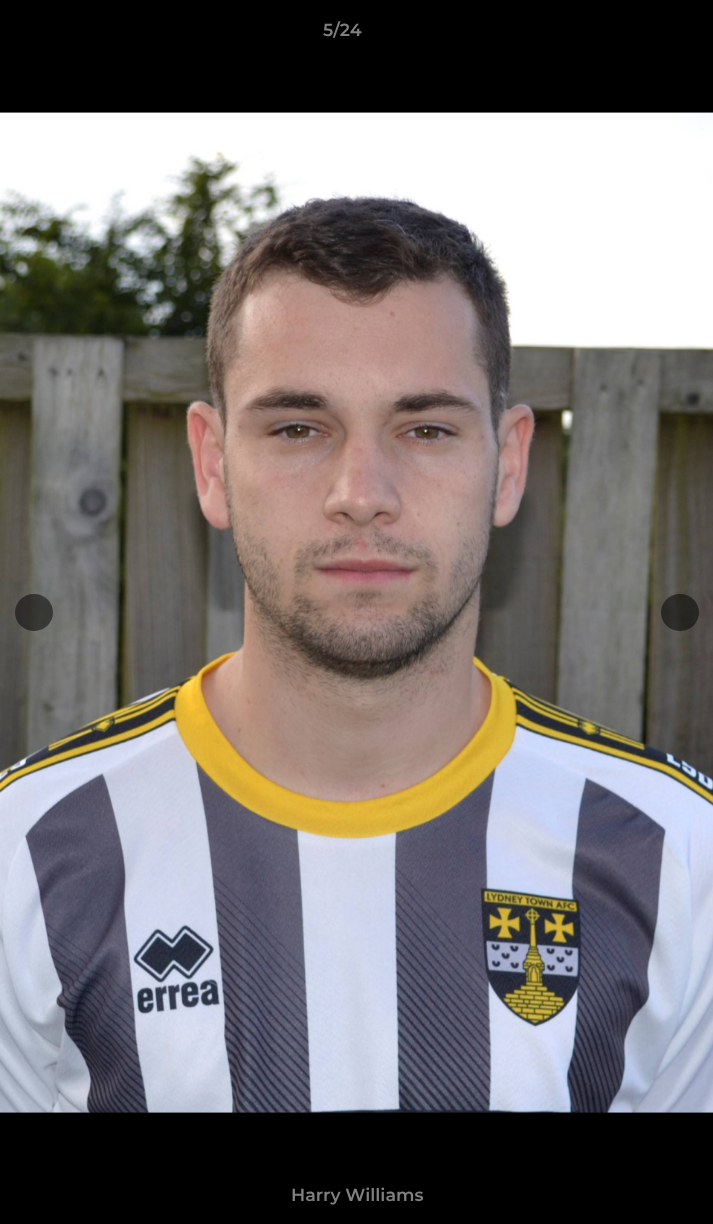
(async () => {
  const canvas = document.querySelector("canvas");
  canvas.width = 713;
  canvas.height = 1224;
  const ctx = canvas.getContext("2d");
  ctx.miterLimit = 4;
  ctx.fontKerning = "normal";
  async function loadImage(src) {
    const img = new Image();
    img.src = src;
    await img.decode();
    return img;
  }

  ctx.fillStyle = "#000000";
  ctx.fillRect(0, 0, 713, 1224);
  ctx.drawImage(await loadImage("img/1.png"), 0, 112, 713, 1001);
  ctx.fillStyle = "rgba(0, 0, 0, 0.5)";
  ctx.beginPath();
  ctx.roundRect(15, 594, 38, 37, 18.5);
  ctx.fill();
  ctx.beginPath();
  ctx.roundRect(661, 594, 38, 37, 18.5);
  ctx.fill();
  ctx.font = "600 17.5px Montserrat";
  ctx.fillStyle = "#808080";
  ctx.fillText("5/24", 323, 36);
  ctx.fillText("Harry Williams", 291, 1201);
})();
